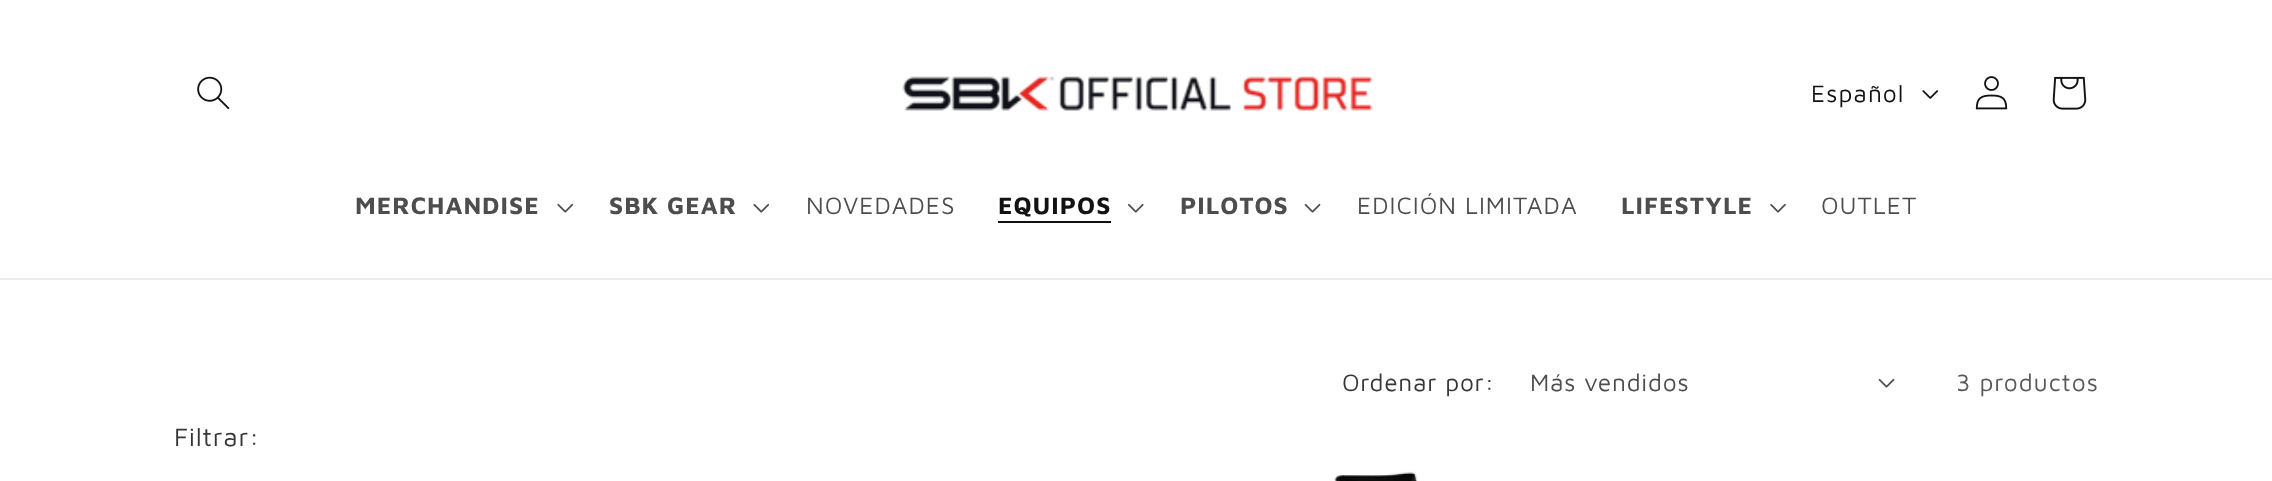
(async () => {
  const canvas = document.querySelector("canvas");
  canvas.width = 2272;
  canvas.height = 481;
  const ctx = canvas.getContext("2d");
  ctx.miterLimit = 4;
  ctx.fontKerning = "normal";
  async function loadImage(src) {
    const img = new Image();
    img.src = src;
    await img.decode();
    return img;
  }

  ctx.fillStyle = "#ffffff";
  ctx.fillRect(0, 0, 2272, 481);
  ctx.fillStyle = "#ececec";
  ctx.fillRect(0, 278, 2272, 2);
  ctx.drawImage(await loadImage("img/1.png"), 197, 76, 33, 34);
  ctx.drawImage(await loadImage("img/2.png"), 902, 76, 471, 35);
  ctx.drawImage(await loadImage("img/3.png"), 1922, 90, 16, 9);
  ctx.drawImage(await loadImage("img/4.png"), 1975, 76, 33, 34);
  ctx.drawImage(await loadImage("img/5.png"), 2052, 76, 35, 34);
  ctx.drawImage(await loadImage("img/6.png"), 557, 203, 17, 10);
  ctx.drawImage(await loadImage("img/6.png"), 753, 203, 17, 10);
  ctx.fillStyle = "#121212";
  ctx.fillRect(998, 221, 113, 2);
  ctx.drawImage(await loadImage("img/7.png"), 1127, 203, 17, 10);
  ctx.drawImage(await loadImage("img/8.png"), 1304, 203, 17, 10);
  ctx.drawImage(await loadImage("img/9.png"), 1770, 204, 16, 9);
  ctx.drawImage(await loadImage("img/8.png"), 1878, 378, 17, 10);
  ctx.drawImage(await loadImage("img/10.png"), 1334, 470, 84, 11);
  ctx.letterSpacing = "1px";
  ctx.font = "24.5px Maven Pro";
  ctx.fillText("Español", 1811, 102);
  ctx.font = "bold 24.5px Maven Pro";
  ctx.fillStyle = "#4d4d4d";
  ctx.fillText("MERCHANDISE", 355, 214);
  ctx.fillText("SBK GEAR", 609, 214);
  ctx.font = "24.5px Maven Pro";
  ctx.fillText("NOVEDADES", 806, 214);
  ctx.font = "bold 24.5px Maven Pro";
  ctx.fillStyle = "#121212";
  ctx.fillText("EQUIPOS", 998, 214);
  ctx.fillStyle = "#4d4d4d";
  ctx.fillText("PILOTOS", 1180, 214);
  ctx.font = "24.5px Maven Pro";
  ctx.fillText("EDICIÓN LIMITADA", 1357, 214);
  ctx.font = "bold 24.5px Maven Pro";
  ctx.fillText("LIFESTYLE", 1621, 214);
  ctx.font = "24.5px Maven Pro";
  ctx.fillText("OUTLET", 1821, 214);
  ctx.letterSpacing = "0.75px";
  ctx.fillStyle = "#363636";
  ctx.fillText("Ordenar por:", 1342, 391);
  ctx.fillStyle = "#4d4d4d";
  ctx.fillText("Más vendidos", 1530, 391);
  ctx.letterSpacing = "1px";
  ctx.fillStyle = "#595959";
  ctx.fillText("3 productos", 1956, 391);
  ctx.letterSpacing = "0.75px";
  ctx.font = "26px Maven Pro";
  ctx.fillStyle = "#363636";
  ctx.fillText("Filtrar:", 174, 446);
})();
